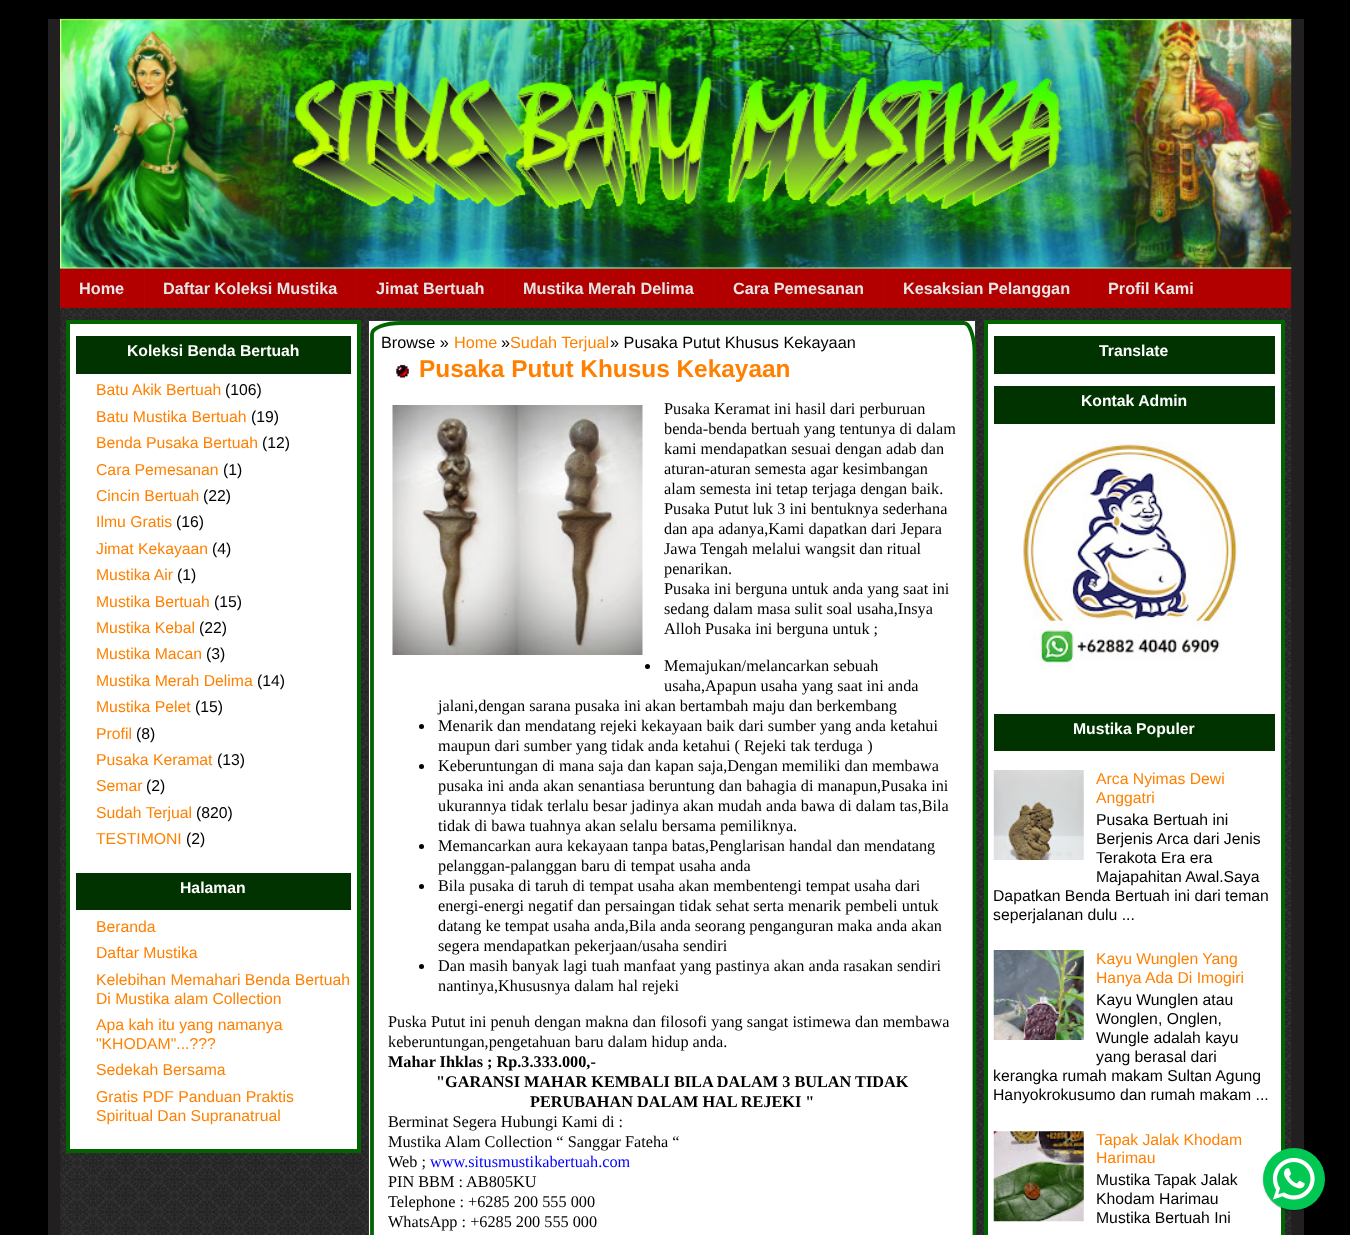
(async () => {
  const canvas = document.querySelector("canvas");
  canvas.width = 1350;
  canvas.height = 1235;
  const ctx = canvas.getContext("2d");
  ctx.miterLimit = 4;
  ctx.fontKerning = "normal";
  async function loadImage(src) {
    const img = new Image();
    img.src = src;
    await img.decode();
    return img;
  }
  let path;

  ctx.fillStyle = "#000000";
  ctx.fillRect(0, 0, 1350, 1235);
  ctx.fillStyle = "#211f1f";
  ctx.fillRect(48, 19, 1256, 1216);
  ctx.drawImage(await loadImage("img/1.png"), 60, 18, 1232, 251);
  ctx.drawImage(await loadImage("img/2.png"), 60, 268, 1232, 967);
  for (const [x, y, w, h, color] of [
    [61, 269, 1230, 39, "#b20000"],
    [60, 269, 1, 39, "#b40404"],
    [144, 269, 1, 39, "#b40404"],
    [356, 269, 1, 39, "#b40404"],
    [504, 269, 1, 39, "#b40404"],
    [713, 269, 1, 39, "#b40404"],
    [883, 269, 1, 39, "#b40404"],
    [1089, 269, 1, 39, "#b40404"],
  ]) {
    ctx.fillStyle = color;
    ctx.fillRect(x, y, w, h);
  }
  ctx.fillStyle = "#ffffff";
  ctx.beginPath();
  ctx.rect(68, 322, 291, 829);
  ctx.fill();
  ctx.strokeStyle = "#006400";
  ctx.lineWidth = 4;
  ctx.stroke();
  ctx.fillStyle = "#003300";
  ctx.fillRect(76, 336, 275, 38);
  ctx.fillRect(76, 873, 275, 37);
  ctx.fillStyle = "#ffffff";
  ctx.beginPath();
  ctx.rect(368.5, 320.5, 607, 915);
  ctx.fill();
  ctx.strokeStyle = "#323232";
  ctx.lineWidth = 1;
  ctx.stroke();
  path = new Path2D("M401 323H964C969.5 323 974.5 336.5 974.5 352.5V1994C974.5 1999.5 961 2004.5 945 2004.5H382.5C376.5 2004.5 372 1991 372 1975V334C372 328 385 323 401 323Z");
  ctx.strokeStyle = "#006400";
  ctx.lineWidth = 3.8;
  ctx.stroke(path);
  ctx.drawImage(await loadImage("img/3.png"), 396, 364, 13, 14);
  ctx.drawImage(await loadImage("img/4.png"), 392, 405, 251, 250);
  ctx.fillStyle = "#000000";
  ctx.beginPath();
  ctx.arc(647.5, 666.5, 2.5, 0, Math.PI * 2);
  ctx.fill();
  ctx.beginPath();
  ctx.arc(421.5, 726.5, 2.5, 0, Math.PI * 2);
  ctx.fill();
  ctx.beginPath();
  ctx.arc(421.5, 766.5, 2.5, 0, Math.PI * 2);
  ctx.fill();
  ctx.beginPath();
  ctx.arc(421.5, 846.5, 2.5, 0, Math.PI * 2);
  ctx.fill();
  ctx.beginPath();
  ctx.arc(421.5, 886.5, 2.5, 0, Math.PI * 2);
  ctx.fill();
  ctx.beginPath();
  ctx.arc(421.5, 966.5, 2.5, 0, Math.PI * 2);
  ctx.fill();
  ctx.fillStyle = "#ffffff";
  ctx.beginPath();
  ctx.rect(986, 322, 297, 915);
  ctx.fill();
  ctx.lineWidth = 4;
  ctx.stroke();
  ctx.fillStyle = "#003300";
  ctx.fillRect(994, 336, 281, 38);
  ctx.fillRect(994, 386, 281, 38);
  ctx.drawImage(await loadImage("img/5.png"), 1023, 441, 218, 228);
  ctx.fillRect(994, 714, 281, 37);
  ctx.drawImage(await loadImage("img/6.png"), 993, 770, 91, 90);
  ctx.drawImage(await loadImage("img/7.png"), 993, 950, 91, 90);
  ctx.drawImage(await loadImage("img/8.png"), 993, 1131, 91, 91);
  ctx.fillStyle = "rgba(0, 0, 0, 0.24)";
  ctx.filter = "blur(0.5px)";
  ctx.beginPath();
  ctx.roundRect(1263, 1149, 62, 62, 31);
  ctx.fill();
  ctx.filter = "none";
  ctx.fillStyle = "rgba(0, 0, 0, 0.12)";
  ctx.filter = "blur(1px)";
  ctx.beginPath();
  ctx.roundRect(1263, 1149, 62, 62, 31);
  ctx.fill();
  ctx.filter = "none";
  ctx.fillStyle = "#00c853";
  ctx.beginPath();
  ctx.arc(1294, 1179, 31, 0, Math.PI * 2);
  ctx.fill();
  ctx.drawImage(await loadImage("img/9.png"), 1272, 1157, 43, 43);
  ctx.font = "bold 16.25px Liberation Sans";
  ctx.fillStyle = "#e6e6e6";
  for (const [text, x, y] of [
    ["Home", 79, 294],
    ["Daftar Koleksi Mustika", 163, 294],
    ["Jimat Bertuah", 376, 294],
    ["Mustika Merah Delima", 523, 294],
    ["Cara Pemesanan", 733, 294],
    ["Kesaksian Pelanggan", 903, 294],
    ["Profil Kami", 1108, 294],
  ]) {
    ctx.fillText(text, x, y);
  }
  ctx.font = "bold 15.75px Liberation Sans";
  ctx.fillStyle = "#ffffff";
  ctx.fillText("Koleksi Benda Bertuah", 127, 356);
  ctx.font = "15.75px Liberation Sans";
  ctx.fillStyle = "#ff8000";
  ctx.fillText("Batu Akik Bertuah", 96, 395);
  ctx.fillStyle = "#000000";
  ctx.fillText("(106)", 225, 395);
  ctx.fillStyle = "#ff8000";
  ctx.fillText("Batu Mustika Bertuah", 96, 422);
  ctx.fillStyle = "#000000";
  ctx.fillText("(19)", 251, 422);
  ctx.fillStyle = "#ff8000";
  ctx.fillText("Benda Pusaka Bertuah", 96, 448);
  ctx.fillStyle = "#000000";
  ctx.fillText("(12)", 262, 448);
  ctx.fillStyle = "#ff8000";
  ctx.fillText("Cara Pemesanan", 96, 475);
  ctx.fillStyle = "#000000";
  ctx.fillText("(1)", 223, 475);
  ctx.fillStyle = "#ff8000";
  ctx.fillText("Cincin Bertuah", 96, 501);
  ctx.fillStyle = "#000000";
  ctx.fillText("(22)", 203, 501);
  ctx.fillStyle = "#ff8000";
  ctx.fillText("Ilmu Gratis", 96, 527);
  ctx.fillStyle = "#000000";
  ctx.fillText("(16)", 176, 527);
  ctx.fillStyle = "#ff8000";
  ctx.fillText("Jimat Kekayaan", 96, 554);
  ctx.fillStyle = "#000000";
  ctx.fillText("(4)", 212, 554);
  ctx.fillStyle = "#ff8000";
  ctx.fillText("Mustika Air", 96, 580);
  ctx.fillStyle = "#000000";
  ctx.fillText("(1)", 177, 580);
  ctx.fillStyle = "#ff8000";
  ctx.fillText("Mustika Bertuah", 96, 607);
  ctx.fillStyle = "#000000";
  ctx.fillText("(15)", 214, 607);
  ctx.fillStyle = "#ff8000";
  ctx.fillText("Mustika Kebal", 96, 633);
  ctx.fillStyle = "#000000";
  ctx.fillText("(22)", 199, 633);
  ctx.fillStyle = "#ff8000";
  ctx.fillText("Mustika Macan", 96, 659);
  ctx.fillStyle = "#000000";
  ctx.fillText("(3)", 206, 659);
  ctx.fillStyle = "#ff8000";
  ctx.fillText("Mustika Merah Delima", 96, 686);
  ctx.fillStyle = "#000000";
  ctx.fillText("(14)", 257, 686);
  ctx.fillStyle = "#ff8000";
  ctx.fillText("Mustika Pelet", 96, 712);
  ctx.fillStyle = "#000000";
  ctx.fillText("(15)", 195, 712);
  ctx.fillStyle = "#ff8000";
  ctx.fillText("Profil", 96, 739);
  ctx.fillStyle = "#000000";
  ctx.fillText("(8)", 136, 739);
  ctx.fillStyle = "#ff8000";
  ctx.fillText("Pusaka Keramat", 96, 765);
  ctx.fillStyle = "#000000";
  ctx.fillText("(13)", 217, 765);
  ctx.fillStyle = "#ff8000";
  ctx.fillText("Semar", 96, 791);
  ctx.fillStyle = "#000000";
  ctx.fillText("(2)", 146, 791);
  ctx.fillStyle = "#ff8000";
  ctx.fillText("Sudah Terjual", 96, 818);
  ctx.fillStyle = "#000000";
  ctx.fillText("(820)", 196, 818);
  ctx.fillStyle = "#ff8000";
  ctx.fillText("TESTIMONI", 96, 844);
  ctx.fillStyle = "#000000";
  ctx.fillText("(2)", 186, 844);
  ctx.font = "bold 15.75px Liberation Sans";
  ctx.fillStyle = "#ffffff";
  ctx.fillText("Halaman", 180, 893);
  ctx.font = "15.75px Liberation Sans";
  ctx.fillStyle = "#ff8000";
  for (const [text, x, y] of [
    ["Beranda", 96, 932],
    ["Daftar Mustika", 96, 958],
    ["Kelebihan Memahari Benda Bertuah", 96, 985],
    ["Di Mustika alam Collection", 96, 1004],
    ["Apa kah itu yang namanya", 96, 1030],
    ["\"KHODAM\"...???", 96, 1049],
    ["Sedekah Bersama", 96, 1075],
    ["Gratis PDF Panduan Praktis", 96, 1102],
    ["Spiritual Dan Supranatrual", 96, 1121],
  ]) {
    ctx.fillText(text, x, y);
  }
  ctx.font = "16.25px Liberation Sans";
  ctx.fillStyle = "#000000";
  ctx.fillText("Browse »", 381, 348);
  ctx.fillStyle = "#ff8000";
  ctx.fillText("Home", 454, 348);
  ctx.fillStyle = "#000000";
  ctx.fillText("»", 501, 348);
  ctx.fillStyle = "#ff8000";
  ctx.fillText("Sudah Terjual", 510, 348);
  ctx.fillStyle = "#000000";
  ctx.fillText("» Pusaka Putut Khusus Kekayaan", 610, 348);
  ctx.font = "bold 24.4px Liberation Sans";
  ctx.fillStyle = "#ff8000";
  ctx.fillText("Pusaka Putut Khusus Kekayaan", 419, 377);
  ctx.font = "16.25px Liberation Serif";
  ctx.fillStyle = "#000000";
  for (const [text, x, y] of [
    ["Pusaka Keramat ini hasil dari perburuan", 664, 414],
    ["benda-benda bertuah yang tentunya di dalam", 664, 434],
    ["kami mendapatkan sesuai dengan adab dan", 664, 454],
    ["aturan-aturan semesta agar kesimbangan", 664, 474],
    ["alam semesta ini tetap terjaga dengan baik.", 664, 494],
    ["Pusaka Putut luk 3 ini bentuknya sederhana", 664, 514],
    ["dan apa adanya,Kami dapatkan dari Jepara", 664, 534],
    ["Jawa Tengah melalui wangsit dan ritual", 664, 554],
    ["penarikan.", 664, 574],
    ["Pusaka ini berguna untuk anda yang saat ini", 664, 594],
    ["sedang dalam masa sulit soal usaha,Insya", 664, 614],
    ["Alloh Pusaka ini berguna untuk ;", 664, 634],
    ["Memajukan/melancarkan sebuah", 664, 671],
    ["usaha,Apapun usaha yang saat ini anda", 664, 691],
    ["jalani,dengan sarana pusaka ini akan bertambah maju dan berkembang", 438, 711],
    ["Menarik dan mendatang rejeki kekayaan baik dari sumber yang anda ketahui", 438, 731],
    ["maupun dari sumber yang tidak anda ketahui ( Rejeki tak terduga )", 438, 751],
    ["Keberuntungan di mana saja dan kapan saja,Dengan memiliki dan membawa", 438, 771],
    ["pusaka ini anda akan senantiasa beruntung dan bahagia di manapun,Pusaka ini", 438, 791],
    ["ukurannya tidak terlalu besar jadinya akan mudah anda bawa di dalam tas,Bila", 438, 811],
    ["tidak di bawa tuahnya akan selalu bersama pemiliknya.", 438, 831],
    ["Memancarkan aura kekayaan tanpa batas,Penglarisan handal dan mendatang", 438, 851],
    ["pelanggan-palanggan baru di tempat usaha anda", 438, 871],
    ["Bila pusaka di taruh di tempat usaha akan membentengi tempat usaha dari", 438, 891],
    ["energi-energi negatif dan persaingan tidak sehat serta menarik pembeli untuk", 438, 911],
    ["datang ke tempat usaha anda,Bila anda seorang penganguran maka anda akan", 438, 931],
    ["segera mendapatkan pekerjaan/usaha sendiri", 438, 951],
    ["Dan masih banyak lagi tuah manfaat yang pastinya akan anda rasakan sendiri", 438, 971],
    ["nantinya,Khususnya dalam hal rejeki", 438, 991],
    ["Puska Putut ini penuh dengan makna dan filosofi yang sangat istimewa dan membawa", 388, 1027],
    ["keberuntungan,pengetahuan baru dalam hidup anda.", 388, 1047],
  ]) {
    ctx.fillText(text, x, y);
  }
  ctx.font = "bold 16.25px Liberation Serif";
  for (const [text, x, y] of [
    ["Mahar Ihklas ; Rp.3.333.000,-", 388, 1067],
    ["\"GARANSI MAHAR KEMBALI BILA DALAM 3 BULAN TIDAK", 436, 1087],
    ["PERUBAHAN DALAM HAL REJEKI \"", 530, 1107],
  ]) {
    ctx.fillText(text, x, y);
  }
  ctx.font = "16.25px Liberation Serif";
  for (const [text, x, y] of [
    ["Berminat Segera Hubungi Kami di :", 388, 1127],
    ["Mustika Alam Collection “ Sanggar Fateha “", 388, 1147],
    ["Web ;", 388, 1167],
  ]) {
    ctx.fillText(text, x, y);
  }
  ctx.fillStyle = "#0000ff";
  ctx.fillText("www.situsmustikabertuah.com", 430, 1167);
  ctx.fillStyle = "#000000";
  for (const [text, x, y] of [
    ["PIN BBM : AB805KU", 388, 1187],
    ["Telephone : +6285 200 555 000", 388, 1207],
    ["WhatsApp : +6285 200 555 000", 388, 1227],
  ]) {
    ctx.fillText(text, x, y);
  }
  ctx.font = "bold 15.75px Liberation Sans";
  ctx.fillStyle = "#ffffff";
  for (const [text, x, y] of [
    ["Translate", 1099, 356],
    ["Kontak Admin", 1081, 406],
    ["Mustika Populer", 1073, 734],
  ]) {
    ctx.fillText(text, x, y);
  }
  ctx.font = "15.75px Liberation Sans";
  ctx.fillStyle = "#ff8000";
  ctx.fillText("Arca Nyimas Dewi", 1096, 784);
  ctx.fillText("Anggatri", 1096, 803);
  ctx.fillStyle = "#000000";
  for (const [text, x, y] of [
    ["Pusaka Bertuah ini", 1096, 825],
    ["Berjenis Arca dari Jenis", 1096, 844],
    ["Terakota Era era", 1096, 863],
    ["Majapahitan Awal.Saya", 1096, 882],
    ["Dapatkan Benda Bertuah ini dari teman", 993, 901],
    ["seperjalanan dulu ...", 993, 920],
  ]) {
    ctx.fillText(text, x, y);
  }
  ctx.fillStyle = "#ff8000";
  ctx.fillText("Kayu Wunglen Yang", 1096, 964);
  ctx.fillText("Hanya Ada Di Imogiri", 1096, 983);
  ctx.fillStyle = "#000000";
  for (const [text, x, y] of [
    ["Kayu Wunglen atau", 1096, 1005],
    ["Wonglen, Onglen,", 1096, 1024],
    ["Wungle adalah kayu", 1096, 1043],
    ["yang berasal dari", 1096, 1062],
    ["kerangka rumah makam Sultan Agung", 993, 1081],
    ["Hanyokrokusumo dan rumah makam ...", 993, 1100],
  ]) {
    ctx.fillText(text, x, y);
  }
  ctx.fillStyle = "#ff8000";
  ctx.fillText("Tapak Jalak Khodam", 1096, 1145);
  ctx.fillText("Harimau", 1096, 1163);
  ctx.fillStyle = "#000000";
  for (const [text, x, y] of [
    ["Mustika Tapak Jalak", 1096, 1185],
    ["Khodam Harimau", 1096, 1204],
    ["Mustika Bertuah Ini", 1096, 1223],
  ]) {
    ctx.fillText(text, x, y);
  }
})();
